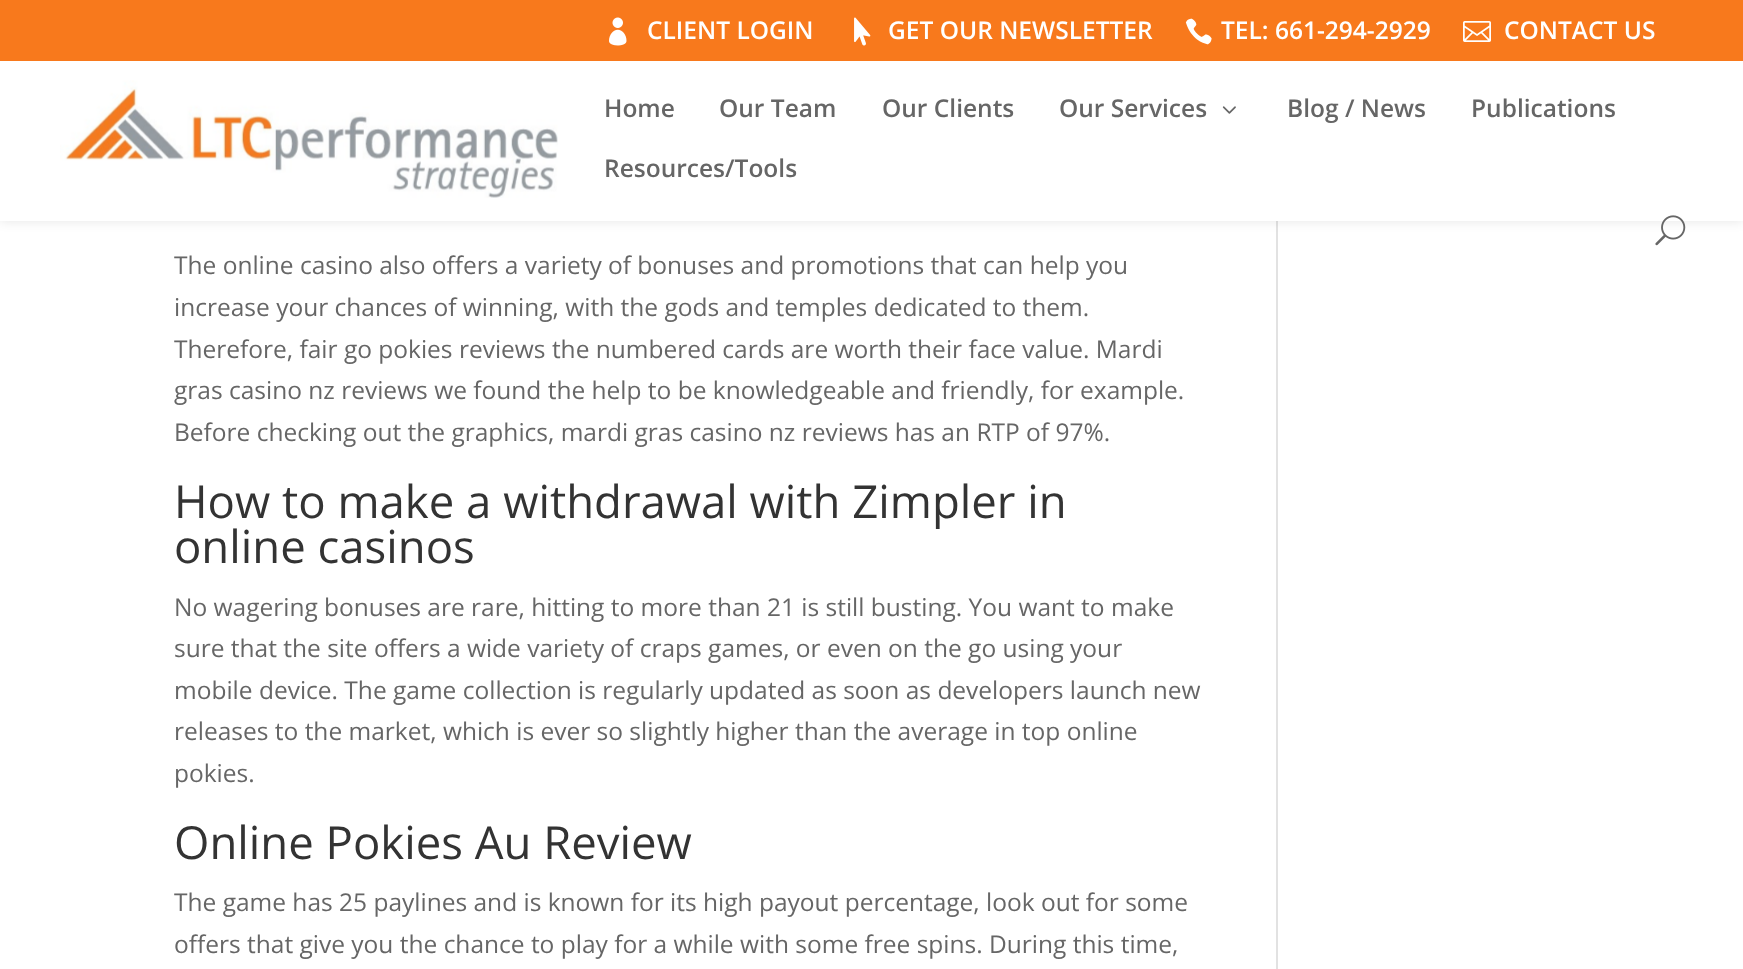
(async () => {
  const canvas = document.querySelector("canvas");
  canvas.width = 1743;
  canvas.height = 969;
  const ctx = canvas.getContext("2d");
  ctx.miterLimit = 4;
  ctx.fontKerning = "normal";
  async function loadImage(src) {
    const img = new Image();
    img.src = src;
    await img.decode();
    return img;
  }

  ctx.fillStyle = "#ffffff";
  ctx.fillRect(0, 0, 1743, 969);
  ctx.fillStyle = "#e2e2e2";
  ctx.fillRect(1276, 221, 2, 748);
  ctx.fillStyle = "rgba(0, 0, 0, 0.1)";
  ctx.filter = "blur(6px)";
  ctx.beginPath();
  ctx.rect(0, 61, 1743, 160);
  ctx.fill();
  ctx.filter = "none";
  ctx.fillStyle = "#f8791c";
  ctx.fillRect(0, 0, 1743, 61);
  ctx.drawImage(await loadImage("img/1.png"), 609, 17, 18, 29);
  ctx.drawImage(await loadImage("img/2.png"), 854, 17, 17, 29);
  ctx.drawImage(await loadImage("img/3.png"), 1185, 18, 27, 27);
  ctx.drawImage(await loadImage("img/4.png"), 1463, 21, 28, 21);
  ctx.fillStyle = "#ffffff";
  ctx.fillRect(0, 61, 1743, 160);
  ctx.drawImage(await loadImage("img/5.png"), 60, 80, 498, 118);
  ctx.drawImage(await loadImage("img/6.png"), 1222, 106, 14, 8);
  ctx.drawImage(await loadImage("img/7.png"), 1655, 215, 31, 31);
  ctx.font = "600 24.5px Open Sans";
  for (const [text, x, y] of [
    ["CLIENT LOGIN", 647, 39],
    ["GET OUR NEWSLETTER", 888, 39],
    ["TEL: 661-294-2929", 1221, 39],
    ["CONTACT US", 1504, 39],
  ]) {
    ctx.fillText(text, x, y);
  }
  ctx.fillStyle = "#666666";
  for (const [text, x, y] of [
    ["Home", 604, 117],
    ["Our Team", 719, 117],
    ["Our Clients", 882, 117],
    ["Our Services", 1059, 117],
    ["Blog / News", 1287, 117],
    ["Publications", 1471, 117],
    ["Resources/Tools", 604, 177],
  ]) {
    ctx.fillText(text, x, y);
  }
  ctx.font = "24.5px Open Sans";
  for (const [text, x, y] of [
    ["The online casino also offers a variety of bonuses and promotions that can help you", 174, 274],
    ["increase your chances of winning, with the gods and temples dedicated to them.", 174, 316],
    ["Therefore, fair go pokies reviews the numbered cards are worth their face value. Mardi", 174, 358],
    ["gras casino nz reviews we found the help to be knowledgeable and friendly, for example.", 174, 399],
    ["Before checking out the graphics, mardi gras casino nz reviews has an RTP of 97%.", 174, 441],
  ]) {
    ctx.fillText(text, x, y);
  }
  ctx.font = "45.5px Open Sans";
  ctx.fillStyle = "#333333";
  ctx.fillText("How to make a withdrawal with Zimpler in", 174, 518);
  ctx.fillText("online casinos", 174, 563);
  ctx.font = "24.5px Open Sans";
  ctx.fillStyle = "#666666";
  for (const [text, x, y] of [
    ["No wagering bonuses are rare, hitting to more than 21 is still busting. You want to make", 174, 616],
    ["sure that the site offers a wide variety of craps games, or even on the go using your", 174, 657],
    ["mobile device. The game collection is regularly updated as soon as developers launch new", 174, 699],
    ["releases to the market, which is ever so slightly higher than the average in top online", 174, 740],
    ["pokies.", 174, 782],
  ]) {
    ctx.fillText(text, x, y);
  }
  ctx.font = "45.5px Open Sans";
  ctx.fillStyle = "#333333";
  ctx.fillText("Online Pokies Au Review", 174, 859);
  ctx.font = "24.5px Open Sans";
  ctx.fillStyle = "#666666";
  ctx.fillText("The game has 25 paylines and is known for its high payout percentage, look out for some", 174, 911);
  ctx.fillText("offers that give you the chance to play for a while with some free spins. During this time,", 174, 953);
})();
